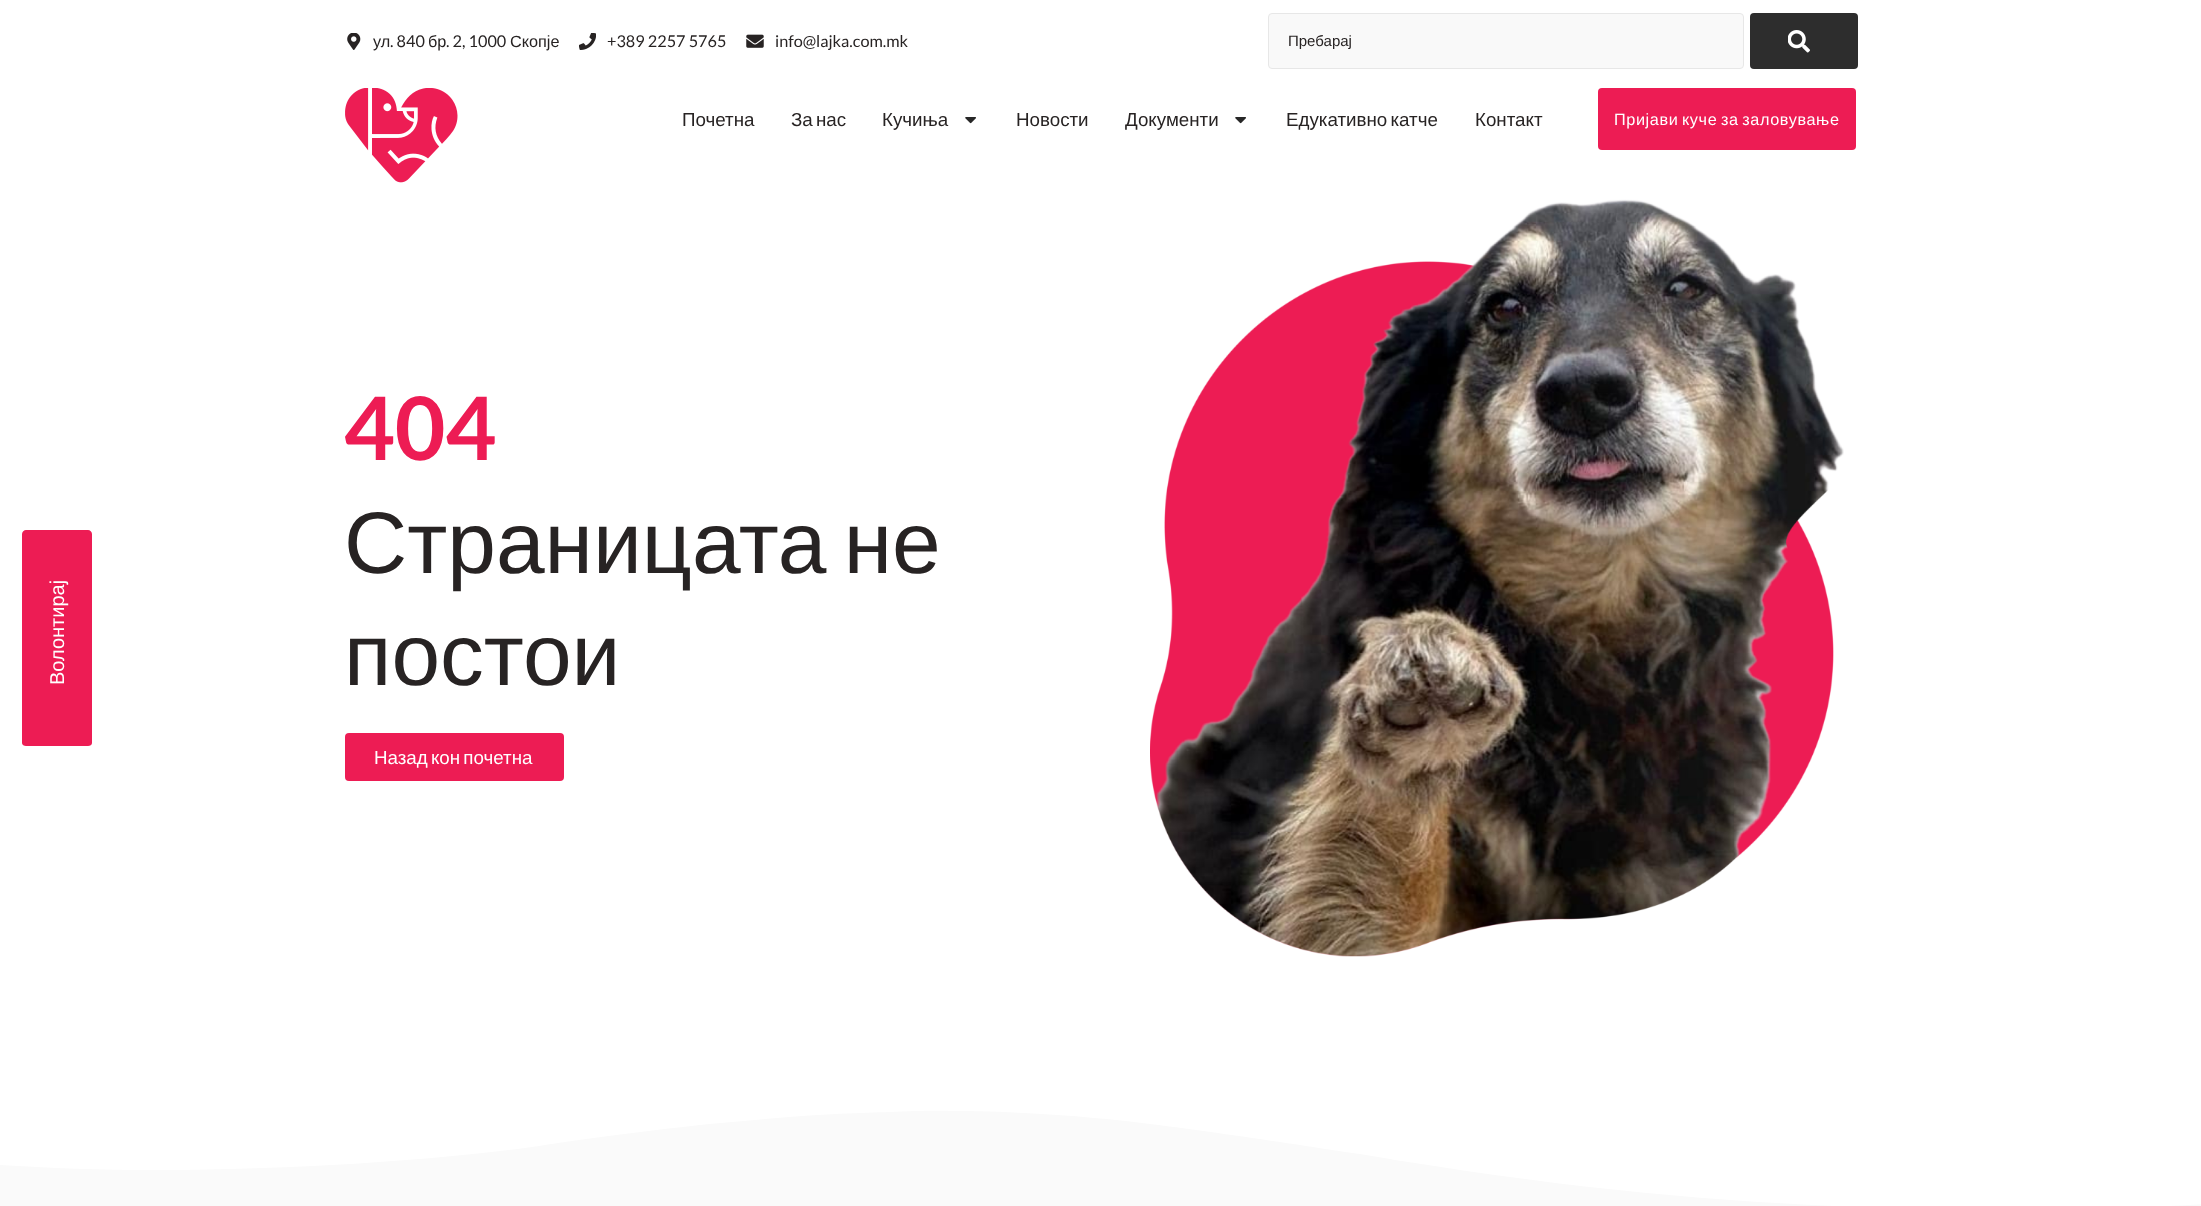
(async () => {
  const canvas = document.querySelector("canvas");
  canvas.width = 2201;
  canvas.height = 1206;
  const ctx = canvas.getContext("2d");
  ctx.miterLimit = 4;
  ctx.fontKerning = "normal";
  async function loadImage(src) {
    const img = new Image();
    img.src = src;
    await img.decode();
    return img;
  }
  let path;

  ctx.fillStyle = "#ffffff";
  ctx.fillRect(0, 0, 2201, 1206);
  ctx.drawImage(await loadImage("img/1.png"), 347, 33, 14, 17);
  ctx.drawImage(await loadImage("img/2.png"), 579, 33, 17, 17);
  ctx.drawImage(await loadImage("img/3.png"), 746, 34, 18, 14);
  ctx.fillStyle = "#f9f9f9";
  ctx.beginPath();
  ctx.roundRect(1268.5, 13.5, 475, 55, 3.5);
  ctx.fill();
  ctx.strokeStyle = "#e7e7e7";
  ctx.stroke();
  ctx.fillStyle = "#2d2d2d";
  ctx.beginPath();
  ctx.roundRect(1750, 13, 108, 56, 4);
  ctx.fill();
  ctx.drawImage(await loadImage("img/4.png"), 1788, 30, 22, 23);
  ctx.drawImage(await loadImage("img/5.png"), 345, 88, 113, 95);
  ctx.drawImage(await loadImage("img/6.png"), 965, 117, 11, 7);
  ctx.drawImage(await loadImage("img/6.png"), 1235, 117, 11, 7);
  ctx.fillStyle = "#ed1c54";
  ctx.beginPath();
  ctx.roundRect(1598, 88, 258, 62, 4);
  ctx.fill();
  ctx.fillStyle = "#fafafa";
  ctx.fillRect(0, 1110, 2201, 96);
  ctx.fillStyle = "#ed1c54";
  path = new Path2D("M22 743V534C22 532 24 530 26 530H88C90 530 92 532 92 534V743C92 745 90 746 88 746H26C24 746 22 745 22 743Z");
  ctx.fill(path);
  ctx.fillStyle = "#ffffff";
  path = new Path2D("M890 1112C951 1109 1029 1112 1094 1118C1158 1123 1286 1143 1366 1155C1572 1190 1729 1203 1888 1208C1952 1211 2020 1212 2168 1206C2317 1199 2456 1178 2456 1178V1105H-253V1137C-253 1137-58 1172 176 1170C282 1169 427 1162 539 1146C596 1137 680 1126 755 1120C828 1113 862 1113 890 1112Z");
  ctx.fill(path);
  ctx.fillStyle = "#ed1c54";
  ctx.beginPath();
  ctx.roundRect(345, 733, 219, 48, 4);
  ctx.fill();
  ctx.drawImage(await loadImage("img/7.png"), 1150, 199, 694, 758);
  ctx.font = "16.25px Liberation Sans";
  ctx.fillStyle = "#272323";
  ctx.fillText("ул", 373, 47);
  ctx.font = "16.25px Lato";
  ctx.fillText(". 840", 390, 47);
  ctx.font = "16.25px Liberation Sans";
  ctx.fillText("бр", 428, 47);
  ctx.font = "16.25px Lato";
  ctx.fillText(". 2, 1000", 446, 47);
  ctx.font = "16.25px Liberation Sans";
  ctx.fillText("Скопје", 510, 47);
  ctx.font = "16.25px Lato";
  ctx.fillText("+389 2257 5765", 607, 47);
  ctx.fillText("info@lajka.com.mk", 775, 47);
  ctx.font = "15px Liberation Sans";
  ctx.fillText("Пребарај", 1288, 46);
  ctx.font = "18.75px Liberation Sans";
  ctx.fillText("Почетна", 682, 126);
  ctx.wordSpacing = "-2px";
  ctx.fillText("За нас", 791, 126);
  ctx.wordSpacing = "0px";
  for (const [text, x, y] of [
    ["Кучиња", 882, 126],
    ["Новости", 1016, 126],
    ["Документи", 1125, 126],
  ]) {
    ctx.fillText(text, x, y);
  }
  ctx.wordSpacing = "-2px";
  ctx.fillText("Едукативно катче", 1286, 126);
  ctx.wordSpacing = "0px";
  ctx.fillText("Контакт", 1475, 126);
  ctx.letterSpacing = "0.6px";
  ctx.wordSpacing = "-1.5px";
  ctx.font = "16.25px Liberation Sans";
  ctx.fillStyle = "#ffffff";
  ctx.fillText("Пријави куче за заловување", 1614, 125);
  ctx.letterSpacing = "0px";
  ctx.wordSpacing = "0px";
  ctx.font = "20px Liberation Sans";
  ctx.save();
  ctx.translate(64, 685);
  ctx.rotate(-90 * Math.PI / 180);
  ctx.fillText("Волонтирај", 0, 0);
  ctx.restore();
  ctx.font = "bold 87.5px Lato";
  ctx.fillStyle = "#ed1c54";
  ctx.fillText("404", 344, 460);
  ctx.wordSpacing = "-7px";
  ctx.font = "87.5px Liberation Sans";
  ctx.fillStyle = "#272323";
  ctx.fillText("Страницата не", 344, 573);
  ctx.wordSpacing = "0px";
  ctx.fillText("постои", 344, 685);
  ctx.wordSpacing = "-2px";
  ctx.font = "18.75px Liberation Sans";
  ctx.fillStyle = "#ffffff";
  ctx.fillText("Назад кон почетна", 374, 764);
})();
